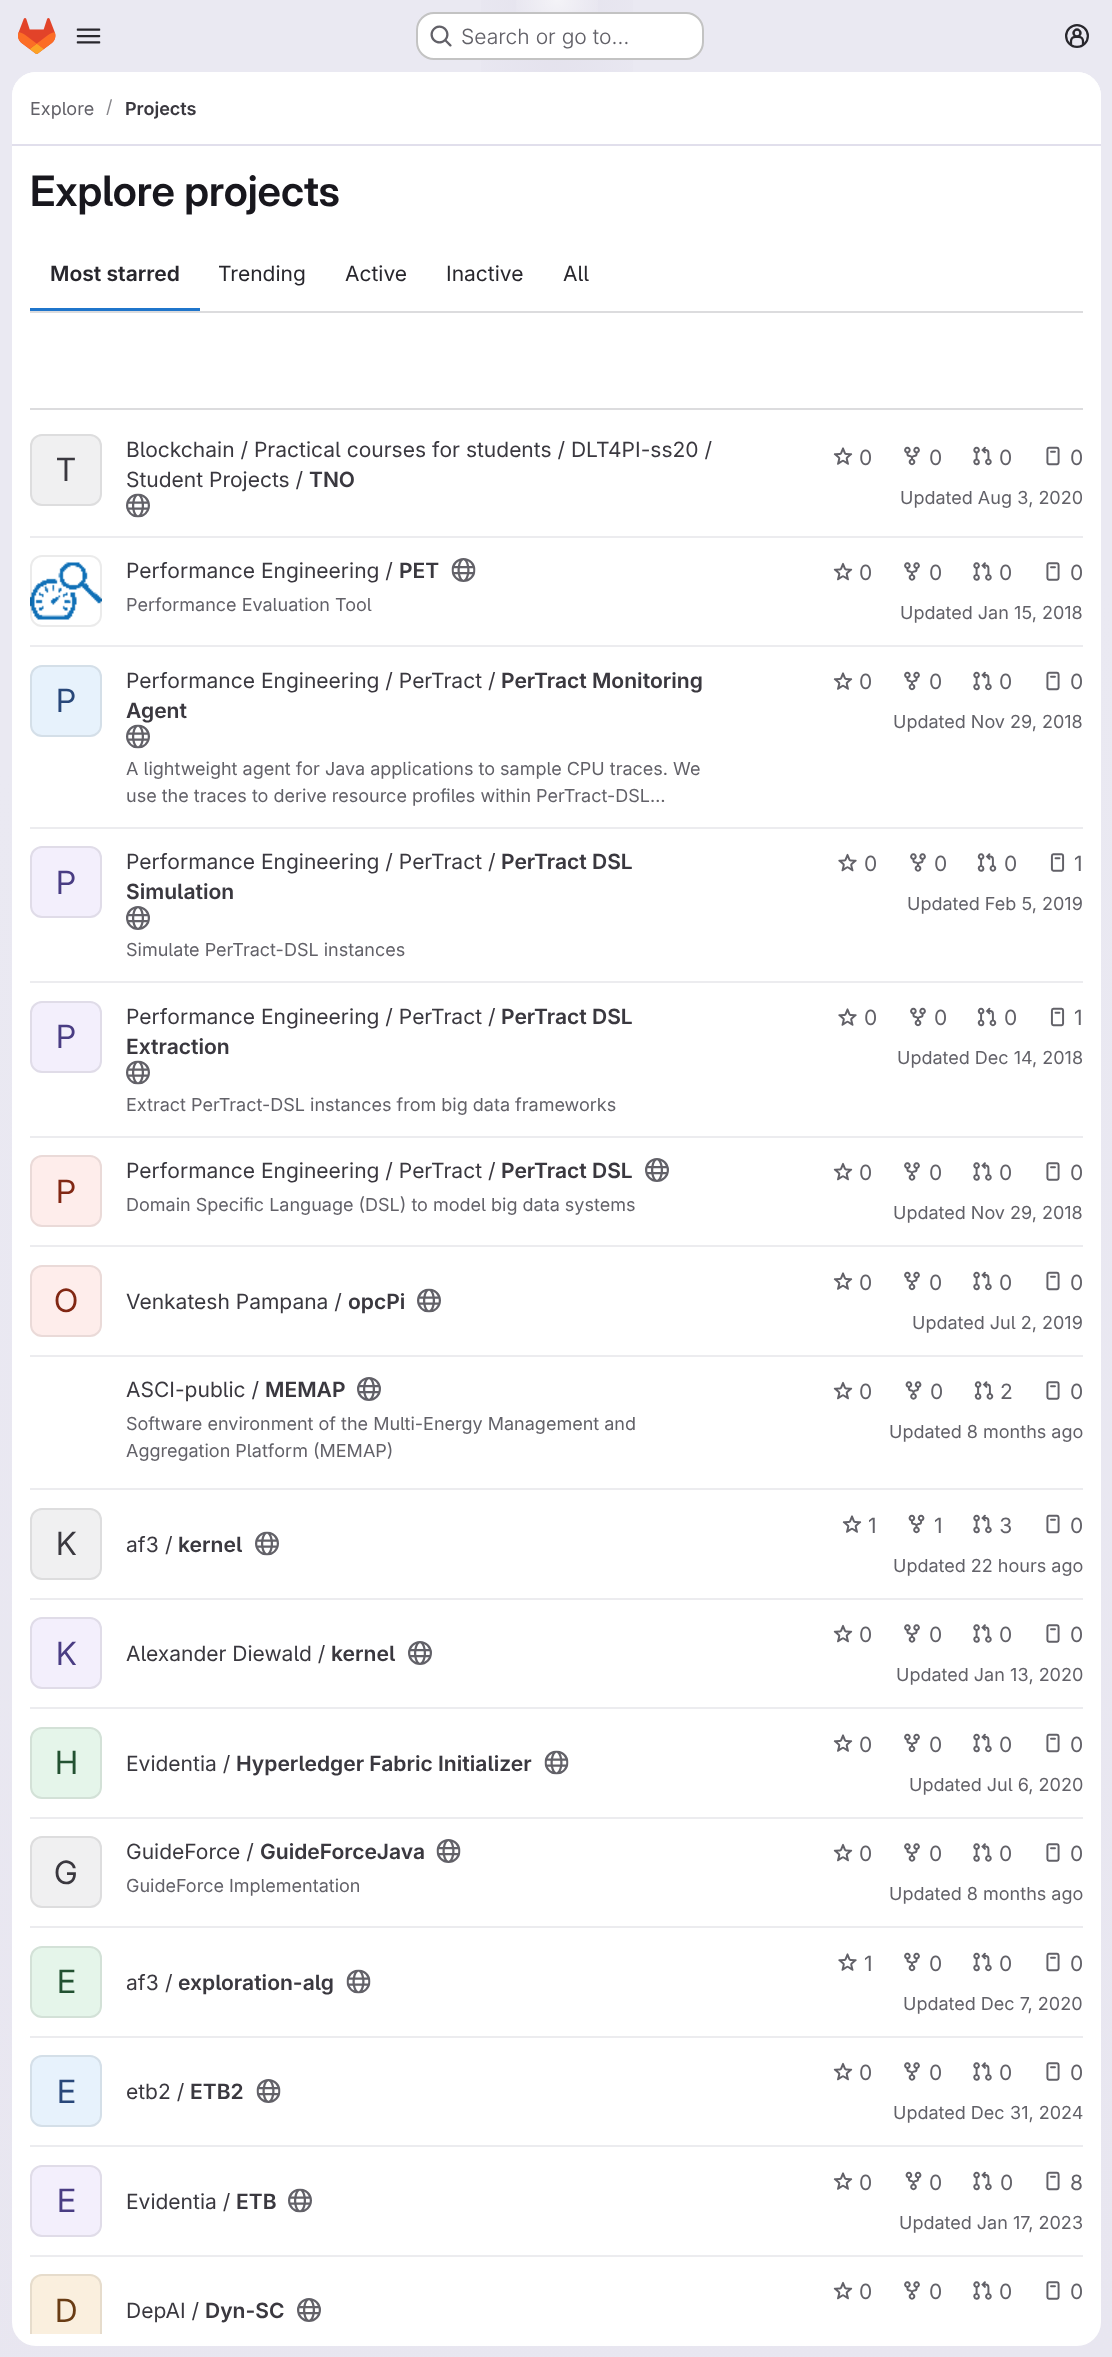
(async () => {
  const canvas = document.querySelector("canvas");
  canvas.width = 1112;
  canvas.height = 2357;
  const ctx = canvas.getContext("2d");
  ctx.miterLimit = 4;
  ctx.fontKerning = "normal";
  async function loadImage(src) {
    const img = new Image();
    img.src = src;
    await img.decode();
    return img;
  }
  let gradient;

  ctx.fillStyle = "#ffffff";
  ctx.fillRect(0, 0, 1112, 2357);
  gradient = ctx.createLinearGradient(775, 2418, 338, -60);
  gradient.addColorStop(0, "#e8e6f0");
  gradient.addColorStop(0.7, "#eae9f2");
  ctx.fillStyle = gradient;
  ctx.fillRect(0, 0, 1112, 2357);
  gradient = ctx.createRadialGradient(557, 0, 0, 557, 0, 557);
  gradient.addColorStop(0, "#e4e2ed");
  gradient.addColorStop(0.19, "rgba(228, 226, 237, 0)");
  ctx.fillStyle = gradient;
  ctx.beginPath();
  ctx.rect(481, 0, 152, 72);
  ctx.save();
  ctx.clip();
  ctx.scale(1, 2358 / 557);
  ctx.fillRect(0, 0, 1112, 557);
  ctx.restore();
  gradient = ctx.createRadialGradient(557, 0, 0, 557, 0, 557);
  gradient.addColorStop(0, "#e4e2ec");
  gradient.addColorStop(0.13, "rgba(228, 226, 236, 0)");
  ctx.fillStyle = gradient;
  ctx.beginPath();
  ctx.rect(532, 10, 50, 33);
  ctx.save();
  ctx.clip();
  ctx.scale(1, 2358 / 557);
  ctx.fillRect(0, 0, 1112, 557);
  ctx.restore();
  gradient = ctx.createRadialGradient(557, 0, 0, 557, 0, 2423);
  gradient.addColorStop(0, "rgba(255, 255, 255, 0.6)");
  gradient.addColorStop(0.02, "rgba(255, 255, 255, 0)");
  ctx.fillStyle = gradient;
  ctx.fillRect(516, 0, 82, 12);
  ctx.drawImage(await loadImage("img/1.png"), 18, 18, 38, 36);
  ctx.drawImage(await loadImage("img/2.png"), 76, 28, 25, 16);
  ctx.fillStyle = "#ffffff";
  ctx.beginPath();
  ctx.roundRect(416, 12, 288, 48, 18);
  ctx.fill();
  ctx.beginPath();
  ctx.roundRect(417, 13, 286, 46, 17);
  ctx.strokeStyle = "rgba(5, 5, 6, 0.24)";
  ctx.lineWidth = 2;
  ctx.stroke();
  ctx.drawImage(await loadImage("img/3.png"), 430, 25, 22, 22);
  ctx.drawImage(await loadImage("img/4.png"), 1065, 24, 24, 24);
  ctx.beginPath();
  ctx.roundRect(12, 72, 1089, 2274, 24);
  ctx.fill();
  ctx.beginPath();
  ctx.roundRect(12, 72, 1089, 74, [24, 24, 0, 0]);
  ctx.fill();
  for (const [x, y, w, h, color] of [
    [12, 144, 1089, 2, "#e1dfec"],
    [30, 308, 170, 3, "#1f75cb"],
    [30, 311, 1053, 2, "#dcdcde"],
    [30, 408, 1053, 2, "#dcdcde"],
    [30, 536, 1053, 2, "#ececef"],
  ]) {
    ctx.fillStyle = color;
    ctx.fillRect(x, y, w, h);
  }
  ctx.fillStyle = "#f0f0f1";
  ctx.beginPath();
  ctx.roundRect(30, 434, 72, 72, 12);
  ctx.fill();
  ctx.beginPath();
  ctx.roundRect(31, 435, 70, 70, 11);
  ctx.strokeStyle = "rgba(5, 5, 6, 0.08)";
  ctx.stroke();
  ctx.drawImage(await loadImage("img/5.png"), 126, 493, 24, 25);
  ctx.drawImage(await loadImage("img/6.png"), 833, 447, 20, 18);
  ctx.drawImage(await loadImage("img/7.png"), 904, 446, 16, 20);
  ctx.drawImage(await loadImage("img/8.png"), 973, 446, 19, 20);
  ctx.drawImage(await loadImage("img/9.png"), 1046, 446, 14, 20);
  ctx.fillStyle = "#ececef";
  ctx.fillRect(30, 645, 1053, 2);
  ctx.drawImage(await loadImage("img/10.png"), 30, 562, 72, 58);
  ctx.beginPath();
  ctx.roundRect(31, 556, 70, 70, 11);
  ctx.stroke();
  ctx.drawImage(await loadImage("img/11.png"), 451, 558, 25, 24);
  ctx.drawImage(await loadImage("img/12.png"), 833, 562, 20, 19);
  ctx.drawImage(await loadImage("img/13.png"), 904, 562, 16, 19);
  ctx.drawImage(await loadImage("img/14.png"), 973, 562, 19, 19);
  ctx.drawImage(await loadImage("img/15.png"), 1046, 562, 14, 19);
  ctx.fillRect(30, 827, 1053, 2);
  ctx.fillStyle = "#e7f2fc";
  ctx.beginPath();
  ctx.roundRect(30, 665, 72, 72, 12);
  ctx.fill();
  ctx.beginPath();
  ctx.roundRect(31, 666, 70, 70, 11);
  ctx.stroke();
  ctx.drawImage(await loadImage("img/16.png"), 126, 724, 24, 25);
  ctx.drawImage(await loadImage("img/6.png"), 833, 672, 20, 18);
  ctx.drawImage(await loadImage("img/7.png"), 904, 671, 16, 20);
  ctx.drawImage(await loadImage("img/8.png"), 973, 671, 19, 20);
  ctx.drawImage(await loadImage("img/9.png"), 1046, 671, 14, 20);
  ctx.fillStyle = "#ececef";
  ctx.fillRect(30, 981, 1053, 2);
  ctx.fillStyle = "#f3effc";
  ctx.beginPath();
  ctx.roundRect(30, 846, 72, 72, 12);
  ctx.fill();
  ctx.beginPath();
  ctx.roundRect(31, 847, 70, 70, 11);
  ctx.stroke();
  ctx.drawImage(await loadImage("img/17.png"), 126, 906, 24, 24);
  ctx.drawImage(await loadImage("img/18.png"), 838, 853, 19, 19);
  ctx.drawImage(await loadImage("img/13.png"), 910, 853, 16, 19);
  ctx.drawImage(await loadImage("img/19.png"), 977, 853, 20, 19);
  ctx.drawImage(await loadImage("img/20.png"), 1050, 853, 15, 19);
  ctx.fillStyle = "#ececef";
  ctx.fillRect(30, 1136, 1053, 2);
  ctx.fillStyle = "#f3effc";
  ctx.beginPath();
  ctx.roundRect(30, 1001, 72, 72, 12);
  ctx.fill();
  ctx.beginPath();
  ctx.roundRect(31, 1002, 70, 70, 11);
  ctx.stroke();
  ctx.drawImage(await loadImage("img/21.png"), 126, 1060, 24, 25);
  ctx.drawImage(await loadImage("img/22.png"), 838, 1008, 19, 18);
  ctx.drawImage(await loadImage("img/23.png"), 910, 1007, 16, 20);
  ctx.drawImage(await loadImage("img/24.png"), 977, 1007, 20, 20);
  ctx.drawImage(await loadImage("img/25.png"), 1050, 1007, 15, 20);
  ctx.fillStyle = "#ececef";
  ctx.fillRect(30, 1245, 1053, 2);
  ctx.fillStyle = "#feedeb";
  ctx.beginPath();
  ctx.roundRect(30, 1155, 72, 72, 12);
  ctx.fill();
  ctx.beginPath();
  ctx.roundRect(31, 1156, 70, 70, 11);
  ctx.stroke();
  ctx.drawImage(await loadImage("img/17.png"), 645, 1158, 24, 24);
  ctx.drawImage(await loadImage("img/12.png"), 833, 1162, 20, 19);
  ctx.drawImage(await loadImage("img/13.png"), 904, 1162, 16, 19);
  ctx.drawImage(await loadImage("img/14.png"), 973, 1162, 19, 19);
  ctx.drawImage(await loadImage("img/15.png"), 1046, 1162, 14, 19);
  ctx.fillStyle = "#ececef";
  ctx.fillRect(30, 1355, 1053, 2);
  ctx.fillStyle = "#feedeb";
  ctx.beginPath();
  ctx.roundRect(30, 1265, 72, 72, 12);
  ctx.fill();
  ctx.beginPath();
  ctx.roundRect(31, 1266, 70, 70, 11);
  ctx.stroke();
  ctx.drawImage(await loadImage("img/21.png"), 417, 1288, 24, 25);
  ctx.drawImage(await loadImage("img/6.png"), 833, 1272, 20, 18);
  ctx.drawImage(await loadImage("img/7.png"), 904, 1271, 16, 20);
  ctx.drawImage(await loadImage("img/8.png"), 973, 1271, 19, 20);
  ctx.drawImage(await loadImage("img/9.png"), 1046, 1271, 14, 20);
  ctx.fillStyle = "#ececef";
  ctx.fillRect(30, 1488, 1053, 2);
  ctx.drawImage(await loadImage("img/17.png"), 357, 1377, 24, 24);
  ctx.drawImage(await loadImage("img/12.png"), 833, 1381, 20, 19);
  ctx.drawImage(await loadImage("img/26.png"), 905, 1381, 17, 19);
  ctx.drawImage(await loadImage("img/19.png"), 974, 1381, 20, 19);
  ctx.drawImage(await loadImage("img/15.png"), 1046, 1381, 14, 19);
  ctx.fillRect(30, 1598, 1053, 2);
  ctx.fillStyle = "#f0f0f1";
  ctx.beginPath();
  ctx.roundRect(30, 1508, 72, 72, 12);
  ctx.fill();
  ctx.beginPath();
  ctx.roundRect(31, 1509, 70, 70, 11);
  ctx.stroke();
  ctx.drawImage(await loadImage("img/21.png"), 255, 1531, 24, 25);
  ctx.drawImage(await loadImage("img/27.png"), 842, 1515, 20, 18);
  ctx.drawImage(await loadImage("img/28.png"), 908, 1514, 17, 20);
  ctx.drawImage(await loadImage("img/8.png"), 973, 1514, 19, 20);
  ctx.drawImage(await loadImage("img/9.png"), 1046, 1514, 14, 20);
  ctx.fillStyle = "#ececef";
  ctx.fillRect(30, 1707, 1053, 2);
  ctx.fillStyle = "#f3effc";
  ctx.beginPath();
  ctx.roundRect(30, 1617, 72, 72, 12);
  ctx.fill();
  ctx.beginPath();
  ctx.roundRect(31, 1618, 70, 70, 11);
  ctx.stroke();
  ctx.drawImage(await loadImage("img/17.png"), 408, 1641, 24, 24);
  ctx.drawImage(await loadImage("img/12.png"), 833, 1624, 20, 19);
  ctx.drawImage(await loadImage("img/13.png"), 904, 1624, 16, 19);
  ctx.drawImage(await loadImage("img/14.png"), 973, 1624, 19, 19);
  ctx.drawImage(await loadImage("img/15.png"), 1046, 1624, 14, 19);
  ctx.fillStyle = "#ececef";
  ctx.fillRect(30, 1817, 1053, 2);
  ctx.fillStyle = "#e5f5ea";
  ctx.beginPath();
  ctx.roundRect(30, 1727, 72, 72, 12);
  ctx.fill();
  ctx.beginPath();
  ctx.roundRect(31, 1728, 70, 70, 11);
  ctx.stroke();
  ctx.drawImage(await loadImage("img/29.png"), 544, 1750, 25, 25);
  ctx.drawImage(await loadImage("img/6.png"), 833, 1734, 20, 18);
  ctx.drawImage(await loadImage("img/7.png"), 904, 1733, 16, 20);
  ctx.drawImage(await loadImage("img/8.png"), 973, 1733, 19, 20);
  ctx.drawImage(await loadImage("img/9.png"), 1046, 1733, 14, 20);
  ctx.fillStyle = "#ececef";
  ctx.fillRect(30, 1926, 1053, 2);
  ctx.fillStyle = "#f0f0f1";
  ctx.beginPath();
  ctx.roundRect(30, 1836, 72, 72, 12);
  ctx.fill();
  ctx.beginPath();
  ctx.roundRect(31, 1837, 70, 70, 11);
  ctx.stroke();
  ctx.drawImage(await loadImage("img/30.png"), 436, 1839, 25, 24);
  ctx.drawImage(await loadImage("img/12.png"), 833, 1843, 20, 19);
  ctx.drawImage(await loadImage("img/13.png"), 904, 1843, 16, 19);
  ctx.drawImage(await loadImage("img/14.png"), 973, 1843, 19, 19);
  ctx.drawImage(await loadImage("img/15.png"), 1046, 1843, 14, 19);
  ctx.fillStyle = "#ececef";
  ctx.fillRect(30, 2036, 1053, 2);
  ctx.fillStyle = "#e5f5ea";
  ctx.beginPath();
  ctx.roundRect(30, 1946, 72, 72, 12);
  ctx.fill();
  ctx.beginPath();
  ctx.roundRect(31, 1947, 70, 70, 11);
  ctx.stroke();
  ctx.drawImage(await loadImage("img/29.png"), 346, 1969, 25, 25);
  ctx.drawImage(await loadImage("img/31.png"), 838, 1953, 19, 18);
  ctx.drawImage(await loadImage("img/7.png"), 904, 1952, 16, 20);
  ctx.drawImage(await loadImage("img/8.png"), 973, 1952, 19, 20);
  ctx.drawImage(await loadImage("img/9.png"), 1046, 1952, 14, 20);
  ctx.fillStyle = "#ececef";
  ctx.fillRect(30, 2145, 1053, 2);
  ctx.fillStyle = "#e7f2fc";
  ctx.beginPath();
  ctx.roundRect(30, 2055, 72, 72, 12);
  ctx.fill();
  ctx.beginPath();
  ctx.roundRect(31, 2056, 70, 70, 11);
  ctx.stroke();
  ctx.drawImage(await loadImage("img/11.png"), 256, 2079, 25, 24);
  ctx.drawImage(await loadImage("img/12.png"), 833, 2062, 20, 19);
  ctx.drawImage(await loadImage("img/13.png"), 904, 2062, 16, 19);
  ctx.drawImage(await loadImage("img/14.png"), 973, 2062, 19, 19);
  ctx.drawImage(await loadImage("img/15.png"), 1046, 2062, 14, 19);
  ctx.fillStyle = "#ececef";
  ctx.fillRect(30, 2255, 1053, 2);
  ctx.fillStyle = "#f3effc";
  ctx.beginPath();
  ctx.roundRect(30, 2165, 72, 72, 12);
  ctx.fill();
  ctx.beginPath();
  ctx.roundRect(31, 2166, 70, 70, 11);
  ctx.stroke();
  ctx.drawImage(await loadImage("img/16.png"), 288, 2188, 24, 25);
  ctx.drawImage(await loadImage("img/6.png"), 833, 2172, 20, 18);
  ctx.drawImage(await loadImage("img/28.png"), 905, 2171, 17, 20);
  ctx.drawImage(await loadImage("img/8.png"), 973, 2171, 19, 20);
  ctx.drawImage(await loadImage("img/9.png"), 1046, 2171, 14, 20);
  ctx.drawImage(await loadImage("img/32.png"), 833, 2281, 20, 19);
  ctx.drawImage(await loadImage("img/33.png"), 904, 2281, 16, 19);
  ctx.drawImage(await loadImage("img/34.png"), 973, 2281, 19, 19);
  ctx.drawImage(await loadImage("img/15.png"), 1046, 2281, 14, 19);
  ctx.fillStyle = "#faefde";
  ctx.beginPath();
  ctx.roundRect(30, 2274, 72, 60, [12, 12, 0, 0]);
  ctx.fill();
  ctx.save();
  ctx.beginPath();
  ctx.rect(12, 146, 1089, 2188);
  ctx.clip();
  ctx.beginPath();
  ctx.roundRect(31, 2275, 70, 70, 11);
  ctx.stroke();
  ctx.restore();
  ctx.drawImage(await loadImage("img/35.png"), 297, 2298, 24, 24);
  ctx.font = "300 21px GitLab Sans";
  ctx.fillStyle = "#626168";
  ctx.fillText("Search or go to…", 461, 44);
  ctx.font = "18px GitLab Sans";
  ctx.fillText("Explore", 30, 115);
  ctx.fillStyle = "#89888d";
  ctx.fillText("/", 106, 113);
  ctx.font = "600 18px 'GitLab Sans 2'";
  ctx.fillStyle = "#3a383f";
  ctx.fillText("Projects", 125, 115);
  ctx.font = "600 42px GitLab Sans";
  ctx.fillStyle = "#18171d";
  ctx.fillText("Explore projects", 30, 206);
  ctx.font = "600 21px 'GitLab Sans 2'";
  ctx.fillStyle = "#28272d";
  ctx.fillText("Most starred", 50, 281);
  ctx.font = "21px GitLab Sans";
  for (const [text, x, y] of [
    ["Trending", 218, 281],
    ["Active", 345, 281],
    ["Inactive", 446, 281],
    ["All", 563, 281],
  ]) {
    ctx.fillText(text, x, y);
  }
  ctx.font = "32px 'GitLab Sans 2'";
  ctx.fillStyle = "#3a383f";
  ctx.fillText("T", 56, 481);
  ctx.font = "21px GitLab Sans";
  ctx.fillText("Blockchain / Practical courses for students / DLT4PI-ss20 /", 126, 457);
  ctx.fillText("Student Projects /", 126, 487);
  ctx.font = "600 21px 'GitLab Sans 2'";
  ctx.fillText("TNO", 309, 487);
  ctx.font = "21px GitLab Sans";
  ctx.fillStyle = "#626168";
  for (const [text, x, y] of [
    ["0", 859, 465],
    ["0", 929, 465],
    ["0", 999, 465],
    ["0", 1070, 465],
  ]) {
    ctx.fillText(text, x, y);
  }
  ctx.font = "18px GitLab Sans";
  ctx.fillText("Updated Aug 3, 2020", 900, 504);
  ctx.font = "21px GitLab Sans";
  ctx.fillStyle = "#3a383f";
  ctx.fillText("Performance Engineering /", 126, 578);
  ctx.font = "600 21px 'GitLab Sans 2'";
  ctx.fillText("PET", 399, 578);
  ctx.font = "18px GitLab Sans";
  ctx.fillStyle = "#626168";
  ctx.fillText("Performance Evaluation Tool", 126, 611);
  ctx.font = "21px GitLab Sans";
  for (const [text, x, y] of [
    ["0", 859, 580],
    ["0", 929, 580],
    ["0", 999, 580],
    ["0", 1070, 580],
  ]) {
    ctx.fillText(text, x, y);
  }
  ctx.font = "18px GitLab Sans";
  ctx.fillText("Updated Jan 15, 2018", 900, 619);
  ctx.font = "32px 'GitLab Sans 2'";
  ctx.fillStyle = "#284779";
  ctx.fillText("P", 56, 712);
  ctx.font = "21px GitLab Sans";
  ctx.fillStyle = "#3a383f";
  ctx.fillText("Performance Engineering / PerTract /", 126, 688);
  ctx.font = "600 21px 'GitLab Sans 2'";
  ctx.fillText("PerTract Monitoring", 501, 688);
  ctx.fillText("Agent", 126, 718);
  ctx.font = "18px GitLab Sans";
  ctx.fillStyle = "#626168";
  ctx.fillText("A lightweight agent for Java applications to sample CPU traces. We", 126, 775);
  ctx.fillText("use the traces to derive resource profiles within PerTract-DSL…", 126, 802);
  ctx.font = "21px GitLab Sans";
  for (const [text, x, y] of [
    ["0", 859, 689],
    ["0", 929, 689],
    ["0", 999, 689],
    ["0", 1070, 689],
  ]) {
    ctx.fillText(text, x, y);
  }
  ctx.font = "18px GitLab Sans";
  ctx.fillText("Updated Nov 29, 2018", 893, 728);
  ctx.font = "32px 'GitLab Sans 2'";
  ctx.fillStyle = "#493c83";
  ctx.fillText("P", 56, 894);
  ctx.font = "21px GitLab Sans";
  ctx.fillStyle = "#3a383f";
  ctx.fillText("Performance Engineering / PerTract /", 126, 869);
  ctx.font = "600 21px 'GitLab Sans 2'";
  ctx.fillText("PerTract DSL", 501, 869);
  ctx.fillText("Simulation", 126, 899);
  ctx.font = "18px GitLab Sans";
  ctx.fillStyle = "#626168";
  ctx.fillText("Simulate PerTract-DSL instances", 126, 956);
  ctx.font = "21px GitLab Sans";
  for (const [text, x, y] of [
    ["0", 864, 871],
    ["0", 934, 871],
    ["0", 1004, 871],
    ["1", 1074, 871],
  ]) {
    ctx.fillText(text, x, y);
  }
  ctx.font = "18px GitLab Sans";
  ctx.fillText("Updated Feb 5, 2019", 907, 910);
  ctx.font = "32px 'GitLab Sans 2'";
  ctx.fillStyle = "#493c83";
  ctx.fillText("P", 56, 1048);
  ctx.font = "21px GitLab Sans";
  ctx.fillStyle = "#3a383f";
  ctx.fillText("Performance Engineering / PerTract /", 126, 1024);
  ctx.font = "600 21px 'GitLab Sans 2'";
  ctx.fillText("PerTract DSL", 501, 1024);
  ctx.fillText("Extraction", 126, 1054);
  ctx.font = "18px GitLab Sans";
  ctx.fillStyle = "#626168";
  ctx.fillText("Extract PerTract-DSL instances from big data frameworks", 126, 1111);
  ctx.font = "21px GitLab Sans";
  for (const [text, x, y] of [
    ["0", 864, 1025],
    ["0", 934, 1025],
    ["0", 1004, 1025],
    ["1", 1074, 1025],
  ]) {
    ctx.fillText(text, x, y);
  }
  ctx.font = "18px GitLab Sans";
  ctx.fillText("Updated Dec 14, 2018", 897, 1064);
  ctx.font = "32px 'GitLab Sans 2'";
  ctx.fillStyle = "#812713";
  ctx.fillText("P", 56, 1203);
  ctx.font = "21px GitLab Sans";
  ctx.fillStyle = "#3a383f";
  ctx.fillText("Performance Engineering / PerTract /", 126, 1178);
  ctx.font = "600 21px 'GitLab Sans 2'";
  ctx.fillText("PerTract DSL", 501, 1178);
  ctx.font = "18px GitLab Sans";
  ctx.fillStyle = "#626168";
  ctx.fillText("Domain Specific Language (DSL) to model big data systems", 126, 1211);
  ctx.font = "21px GitLab Sans";
  for (const [text, x, y] of [
    ["0", 859, 1180],
    ["0", 929, 1180],
    ["0", 999, 1180],
    ["0", 1070, 1180],
  ]) {
    ctx.fillText(text, x, y);
  }
  ctx.font = "18px GitLab Sans";
  ctx.fillText("Updated Nov 29, 2018", 893, 1219);
  ctx.font = "32px 'GitLab Sans 2'";
  ctx.fillStyle = "#812713";
  ctx.fillText("O", 54, 1312);
  ctx.font = "21px GitLab Sans";
  ctx.fillStyle = "#3a383f";
  ctx.fillText("Venkatesh Pampana /", 126, 1309);
  ctx.font = "600 21px 'GitLab Sans 2'";
  ctx.fillText("opcPi", 348, 1309);
  ctx.font = "21px GitLab Sans";
  ctx.fillStyle = "#626168";
  for (const [text, x, y] of [
    ["0", 859, 1290],
    ["0", 929, 1290],
    ["0", 999, 1290],
    ["0", 1070, 1290],
  ]) {
    ctx.fillText(text, x, y);
  }
  ctx.font = "18px GitLab Sans";
  ctx.fillText("Updated Jul 2, 2019", 912, 1329);
  ctx.font = "21px GitLab Sans";
  ctx.fillStyle = "#3a383f";
  ctx.fillText("ASCI-public /", 126, 1397);
  ctx.font = "600 21px 'GitLab Sans 2'";
  ctx.fillText("MEMAP", 265, 1397);
  ctx.font = "18px GitLab Sans";
  ctx.fillStyle = "#626168";
  ctx.fillText("Software environment of the Multi-Energy Management and", 126, 1430);
  ctx.fillText("Aggregation Platform (MEMAP)", 126, 1457);
  ctx.font = "21px GitLab Sans";
  for (const [text, x, y] of [
    ["0", 859, 1399],
    ["0", 930, 1399],
    ["2", 1000, 1399],
    ["0", 1070, 1399],
  ]) {
    ctx.fillText(text, x, y);
  }
  ctx.font = "18px GitLab Sans";
  ctx.fillText("Updated 8 months ago", 889, 1438);
  ctx.font = "32px 'GitLab Sans 2'";
  ctx.fillStyle = "#3a383f";
  ctx.fillText("K", 56, 1555);
  ctx.font = "21px GitLab Sans";
  ctx.fillText("af3 /", 126, 1552);
  ctx.font = "600 21px 'GitLab Sans 2'";
  ctx.fillText("kernel", 178, 1552);
  ctx.font = "21px GitLab Sans";
  ctx.fillStyle = "#626168";
  for (const [text, x, y] of [
    ["1", 868, 1533],
    ["1", 934, 1533],
    ["3", 999, 1533],
    ["0", 1070, 1533],
  ]) {
    ctx.fillText(text, x, y);
  }
  ctx.font = "18px GitLab Sans";
  ctx.fillText("Updated 22 hours ago", 893, 1572);
  ctx.font = "32px 'GitLab Sans 2'";
  ctx.fillStyle = "#493c83";
  ctx.fillText("K", 56, 1665);
  ctx.font = "21px GitLab Sans";
  ctx.fillStyle = "#3a383f";
  ctx.fillText("Alexander Diewald /", 126, 1661);
  ctx.font = "600 21px 'GitLab Sans 2'";
  ctx.fillText("kernel", 331, 1661);
  ctx.font = "21px GitLab Sans";
  ctx.fillStyle = "#626168";
  for (const [text, x, y] of [
    ["0", 859, 1642],
    ["0", 929, 1642],
    ["0", 999, 1642],
    ["0", 1070, 1642],
  ]) {
    ctx.fillText(text, x, y);
  }
  ctx.font = "18px GitLab Sans";
  ctx.fillText("Updated Jan 13, 2020", 896, 1681);
  ctx.font = "32px 'GitLab Sans 2'";
  ctx.fillStyle = "#225131";
  ctx.fillText("H", 55, 1774);
  ctx.font = "21px GitLab Sans";
  ctx.fillStyle = "#3a383f";
  ctx.fillText("Evidentia /", 126, 1771);
  ctx.font = "600 21px 'GitLab Sans 2'";
  ctx.fillText("Hyperledger Fabric Initializer", 236, 1771);
  ctx.font = "21px GitLab Sans";
  ctx.fillStyle = "#626168";
  for (const [text, x, y] of [
    ["0", 859, 1752],
    ["0", 929, 1752],
    ["0", 999, 1752],
    ["0", 1070, 1752],
  ]) {
    ctx.fillText(text, x, y);
  }
  ctx.font = "18px GitLab Sans";
  ctx.fillText("Updated Jul 6, 2020", 909, 1791);
  ctx.font = "32px 'GitLab Sans 2'";
  ctx.fillStyle = "#3a383f";
  ctx.fillText("G", 54, 1884);
  ctx.font = "21px GitLab Sans";
  ctx.fillText("GuideForce /", 126, 1859);
  ctx.font = "600 21px 'GitLab Sans 2'";
  ctx.fillText("GuideForceJava", 260, 1859);
  ctx.font = "18px GitLab Sans";
  ctx.fillStyle = "#626168";
  ctx.fillText("GuideForce Implementation", 126, 1892);
  ctx.font = "21px GitLab Sans";
  for (const [text, x, y] of [
    ["0", 859, 1861],
    ["0", 929, 1861],
    ["0", 999, 1861],
    ["0", 1070, 1861],
  ]) {
    ctx.fillText(text, x, y);
  }
  ctx.font = "18px GitLab Sans";
  ctx.fillText("Updated 8 months ago", 889, 1900);
  ctx.font = "32px 'GitLab Sans 2'";
  ctx.fillStyle = "#225131";
  ctx.fillText("E", 57, 1993);
  ctx.font = "21px GitLab Sans";
  ctx.fillStyle = "#3a383f";
  ctx.fillText("af3 /", 126, 1990);
  ctx.font = "600 21px 'GitLab Sans 2'";
  ctx.fillText("exploration-alg", 178, 1990);
  ctx.font = "21px GitLab Sans";
  ctx.fillStyle = "#626168";
  for (const [text, x, y] of [
    ["1", 864, 1971],
    ["0", 929, 1971],
    ["0", 999, 1971],
    ["0", 1070, 1971],
  ]) {
    ctx.fillText(text, x, y);
  }
  ctx.font = "18px GitLab Sans";
  ctx.fillText("Updated Dec 7, 2020", 903, 2010);
  ctx.font = "32px 'GitLab Sans 2'";
  ctx.fillStyle = "#284779";
  ctx.fillText("E", 57, 2103);
  ctx.font = "21px GitLab Sans";
  ctx.fillStyle = "#3a383f";
  ctx.fillText("etb2 /", 126, 2099);
  ctx.font = "600 21px 'GitLab Sans 2'";
  ctx.fillText("ETB2", 190, 2099);
  ctx.font = "21px GitLab Sans";
  ctx.fillStyle = "#626168";
  for (const [text, x, y] of [
    ["0", 859, 2080],
    ["0", 929, 2080],
    ["0", 999, 2080],
    ["0", 1070, 2080],
  ]) {
    ctx.fillText(text, x, y);
  }
  ctx.font = "18px GitLab Sans";
  ctx.fillText("Updated Dec 31, 2024", 893, 2119);
  ctx.font = "32px 'GitLab Sans 2'";
  ctx.fillStyle = "#493c83";
  ctx.fillText("E", 57, 2212);
  ctx.font = "21px GitLab Sans";
  ctx.fillStyle = "#3a383f";
  ctx.fillText("Evidentia /", 126, 2209);
  ctx.font = "600 21px 'GitLab Sans 2'";
  ctx.fillText("ETB", 236, 2209);
  ctx.font = "21px GitLab Sans";
  ctx.fillStyle = "#626168";
  for (const [text, x, y] of [
    ["0", 859, 2190],
    ["0", 929, 2190],
    ["0", 1000, 2190],
    ["8", 1070, 2190],
  ]) {
    ctx.fillText(text, x, y);
  }
  ctx.font = "18px GitLab Sans";
  ctx.fillText("Updated Jan 17, 2023", 899, 2229);
  ctx.font = "21px GitLab Sans";
  for (const [text, x, y] of [
    ["0", 859, 2299],
    ["0", 929, 2299],
    ["0", 999, 2299],
    ["0", 1070, 2299],
  ]) {
    ctx.fillText(text, x, y);
  }
  ctx.font = "32px 'GitLab Sans 2'";
  ctx.fillStyle = "#693c14";
  ctx.fillText("D", 55, 2322);
  ctx.font = "21px GitLab Sans";
  ctx.fillStyle = "#3a383f";
  ctx.fillText("DepAI /", 126, 2318);
  ctx.font = "600 21px 'GitLab Sans 2'";
  ctx.fillText("Dyn-SC", 205, 2318);
})();
